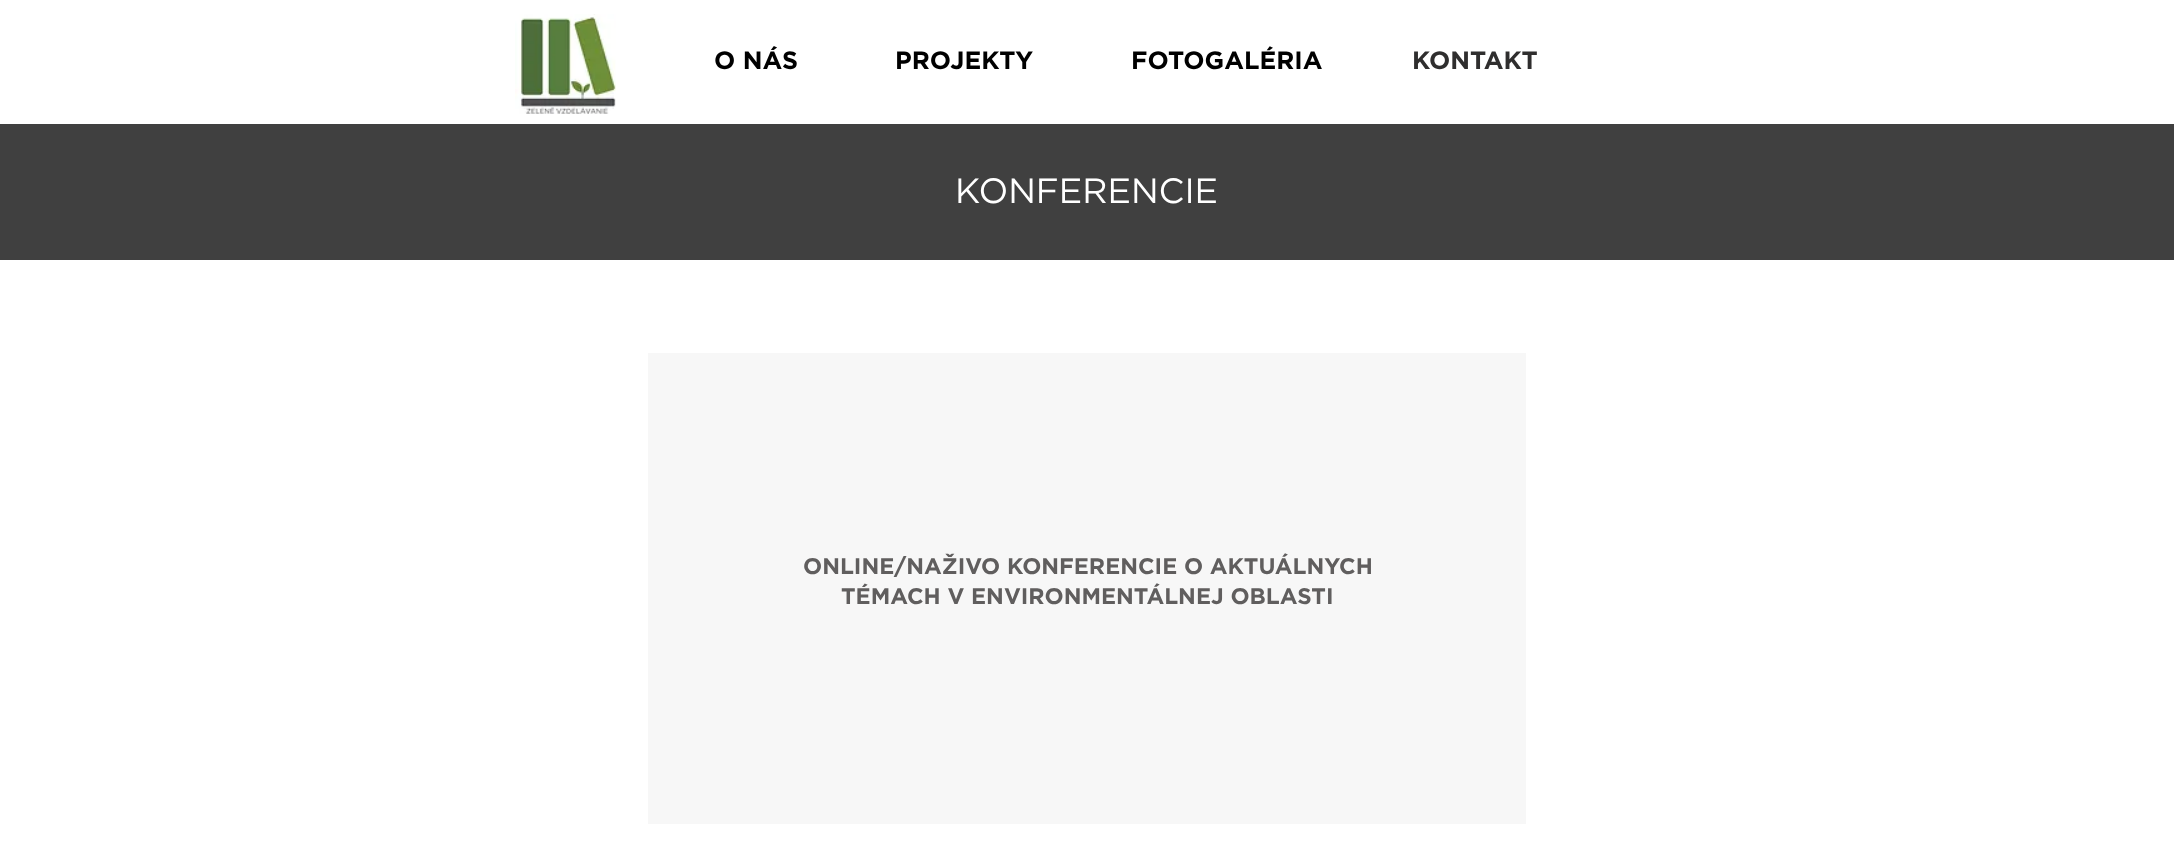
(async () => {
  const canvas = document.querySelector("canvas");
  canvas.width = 2174;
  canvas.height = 845;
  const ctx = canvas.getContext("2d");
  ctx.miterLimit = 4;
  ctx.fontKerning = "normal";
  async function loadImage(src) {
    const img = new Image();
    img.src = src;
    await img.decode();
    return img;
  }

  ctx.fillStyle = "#ffffff";
  ctx.fillRect(0, 0, 2174, 845);
  ctx.drawImage(await loadImage("img/1.png"), 515, 14, 101, 100);
  ctx.fillStyle = "#404040";
  ctx.fillRect(0, 124, 2174, 136);
  ctx.fillStyle = "#f7f7f7";
  ctx.fillRect(648, 353, 878, 471);
  ctx.font = "bold 25px Gotham";
  ctx.fillStyle = "#000000";
  for (const [text, x, y] of [
    ["O NÁS", 714, 69],
    ["PROJEKTY", 895, 69],
    ["FOTOGALÉRIA", 1131, 69],
  ]) {
    ctx.fillText(text, x, y);
  }
  ctx.fillStyle = "#2f2e2e";
  ctx.fillText("KONTAKT", 1412, 69);
  ctx.font = "35px Gotham";
  ctx.fillStyle = "#ffffff";
  ctx.fillText("KONFERENCIE", 955, 203);
  ctx.font = "bold 22.5px Gotham";
  ctx.fillStyle = "#605e5e";
  ctx.fillText("ONLINE/NAŽIVO KONFERENCIE O AKTUÁLNYCH", 803, 574);
  ctx.fillText("TÉMACH V ENVIRONMENTÁLNEJ OBLASTI", 841, 604);
})();
